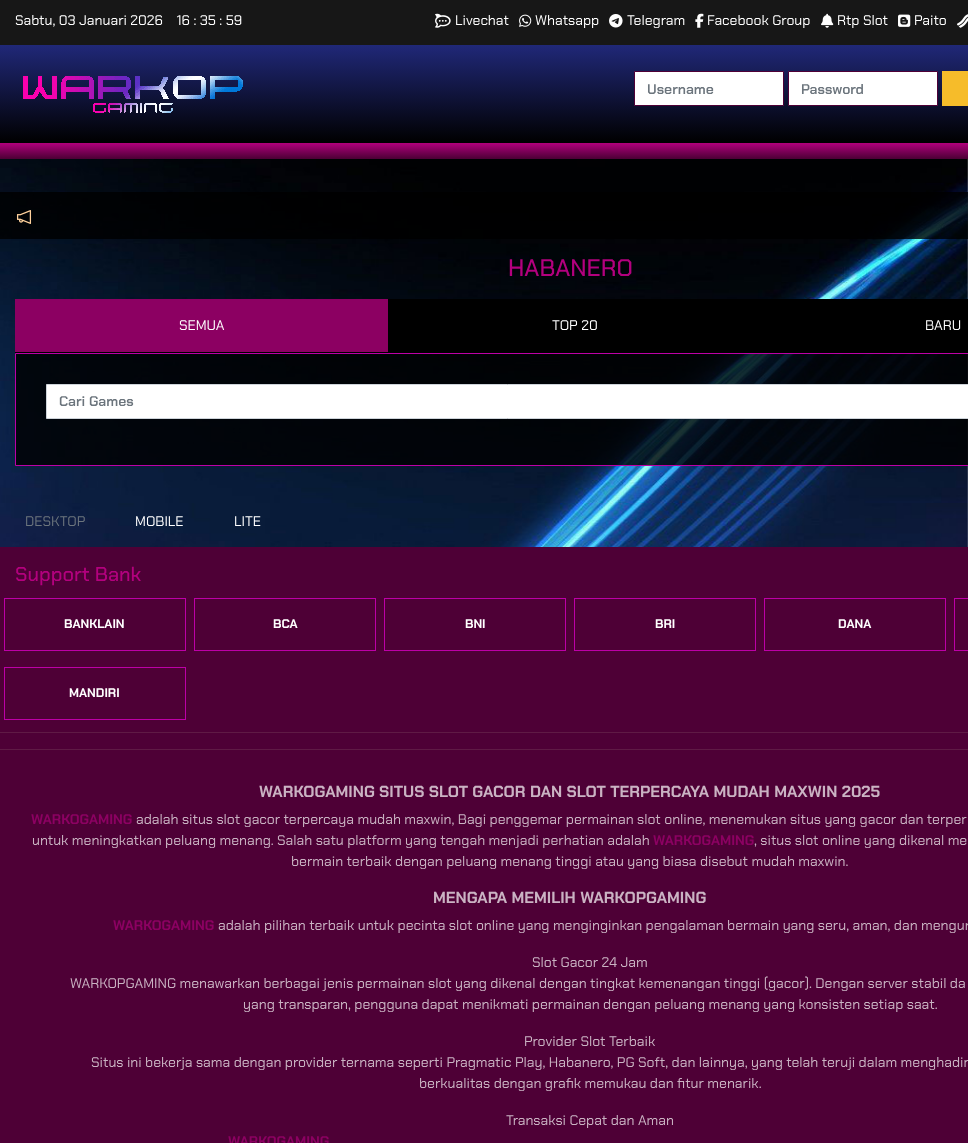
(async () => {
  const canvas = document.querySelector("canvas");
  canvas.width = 968;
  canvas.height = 1143;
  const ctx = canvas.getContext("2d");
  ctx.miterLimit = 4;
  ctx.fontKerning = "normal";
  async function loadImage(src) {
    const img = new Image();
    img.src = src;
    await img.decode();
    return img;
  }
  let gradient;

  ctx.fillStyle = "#ffffff";
  ctx.fillRect(0, 0, 968, 1143);
  ctx.drawImage(await loadImage("img/1.png"), 0, 159, 968, 388);
  ctx.fillStyle = "#171717";
  ctx.fillRect(0, 0, 968, 45);
  ctx.drawImage(await loadImage("img/2.png"), 435, 13, 16, 15);
  ctx.drawImage(await loadImage("img/3.png"), 519, 14, 13, 13);
  ctx.drawImage(await loadImage("img/4.png"), 609, 14, 14, 14);
  ctx.drawImage(await loadImage("img/5.png"), 695, 13, 9, 15);
  ctx.drawImage(await loadImage("img/6.png"), 821, 13, 13, 15);
  ctx.drawImage(await loadImage("img/7.png"), 898, 14, 13, 13);
  ctx.drawImage(await loadImage("img/8.png"), 957, 14, 11, 14);
  gradient = ctx.createLinearGradient(484, 143, 484, 45);
  gradient.addColorStop(0, "#000000");
  gradient.addColorStop(1, "#202878");
  ctx.fillStyle = gradient;
  ctx.fillRect(0, 45, 968, 98);
  ctx.drawImage(await loadImage("img/9.png"), 23, 76, 220, 37);
  ctx.fillStyle = "#ffffff";
  ctx.beginPath();
  ctx.rect(634.5, 71.5, 149, 34);
  ctx.fill();
  ctx.strokeStyle = "#4e0036";
  ctx.stroke();
  ctx.beginPath();
  ctx.rect(788.5, 71.5, 149, 34);
  ctx.fill();
  ctx.stroke();
  ctx.fillStyle = "#f6bc2a";
  ctx.fillRect(942, 71, 26, 35);
  gradient = ctx.createLinearGradient(484, 143, 484, 159);
  gradient.addColorStop(0, "#b2007c");
  gradient.addColorStop(1, "#4b0034");
  ctx.fillStyle = gradient;
  ctx.fillRect(0, 143, 968, 16);
  ctx.fillStyle = "rgba(0, 0, 0, 0.8)";
  ctx.fillRect(0, 192, 968, 47);
  ctx.drawImage(await loadImage("img/10.png"), 16, 210, 16, 14);
  ctx.fillStyle = "#000000";
  ctx.fillRect(15, 299, 953, 54);
  ctx.fillStyle = "#8c0062";
  ctx.fillRect(15, 299, 373, 53);
  ctx.fillStyle = "rgba(0, 0, 0, 0.8)";
  ctx.beginPath();
  ctx.rect(15.5, 353.5, 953, 112);
  ctx.fill();
  ctx.strokeStyle = "#bd00a7";
  ctx.stroke();
  ctx.fillStyle = "#ffffff";
  ctx.beginPath();
  ctx.rect(46.5, 384.5, 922, 34);
  ctx.fill();
  ctx.strokeStyle = "#ced4da";
  ctx.stroke();
  for (const [x, y, w, h, color] of [
    [0, 547, 968, 596, "#4e0036"],
    [0, 749, 968, 1, "#5f1a45"],
    [0, 732, 968, 1, "#5f1a45"],
  ]) {
    ctx.fillStyle = color;
    ctx.fillRect(x, y, w, h);
  }
  ctx.strokeStyle = "#bd00a7";
  ctx.strokeRect(4.5, 598.5, 181, 52);
  ctx.strokeRect(194.5, 598.5, 181, 52);
  ctx.strokeRect(384.5, 598.5, 181, 52);
  ctx.strokeRect(574.5, 598.5, 181, 52);
  ctx.strokeRect(764.5, 598.5, 181, 52);
  ctx.strokeRect(954.5, 598.5, 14, 52);
  ctx.strokeRect(4.5, 667.5, 181, 52);
  ctx.font = "14px Chakra Petch";
  ctx.fillStyle = "#ffffff";
  for (const [text, x, y] of [
    ["Sabtu, 03 Januari 2026    16 : 35 : 59", 15, 25],
    ["Livechat", 455, 25],
    ["Whatsapp", 535, 25],
    ["Telegram", 627, 25],
    ["Facebook Group", 707, 25],
    ["Rtp Slot", 837, 25],
    ["Paito", 914, 25],
  ]) {
    ctx.fillText(text, x, y);
  }
  ctx.font = "600 14px Chakra Petch";
  ctx.fillStyle = "#6c757d";
  ctx.fillText("Username", 647, 94);
  ctx.fillText("Password", 801, 94);
  ctx.font = "500 24px Chakra Petch";
  ctx.fillStyle = "#b3007e";
  ctx.fillText("HABANERO", 508, 276);
  ctx.font = "14px Chakra Petch";
  ctx.fillStyle = "#ffffff";
  for (const [text, x, y] of [
    ["SEMUA", 179, 330],
    ["TOP 20", 552, 330],
    ["BARU", 925, 330],
  ]) {
    ctx.fillText(text, x, y);
  }
  ctx.font = "600 14px Chakra Petch";
  ctx.fillStyle = "#6c757d";
  ctx.fillText("Cari Games", 59, 406);
  ctx.font = "14px Chakra Petch";
  ctx.fillText("DESKTOP", 25, 526);
  ctx.fillStyle = "#ffffff";
  ctx.fillText("MOBILE", 135, 526);
  ctx.fillText("LITE", 234, 526);
  ctx.font = "500 20px Chakra Petch";
  ctx.fillStyle = "#b3007e";
  ctx.fillText("Support Bank", 15, 581);
  ctx.font = "bold 12.5px Chakra Petch";
  ctx.fillStyle = "#ffffff";
  for (const [text, x, y] of [
    ["BANKLAIN", 64, 628],
    ["BCA", 273, 628],
    ["BNI", 465, 628],
    ["BRI", 655, 628],
    ["DANA", 838, 628],
    ["MANDIRI", 69, 697],
  ]) {
    ctx.fillText(text, x, y);
  }
  ctx.font = "bold 16px Chakra Petch";
  ctx.fillStyle = "#cab3c3";
  ctx.fillText("WARKOGAMING SITUS SLOT GACOR DAN SLOT TERPERCAYA MUDAH MAXWIN 2025", 259, 797);
  ctx.font = "bold 14px Chakra Petch";
  ctx.fillStyle = "#8c0062";
  ctx.fillText("WARKOGAMING", 31, 824);
  ctx.font = "14px Chakra Petch";
  ctx.fillStyle = "#cab3c3";
  ctx.fillText("adalah situs slot gacor terpercaya mudah maxwin, Bagi penggemar permainan slot online, menemukan situs yang gacor dan terper", 136, 824);
  ctx.fillText("untuk meningkatkan peluang menang. Salah satu platform yang tengah menjadi perhatian adalah", 32, 845);
  ctx.font = "bold 14px Chakra Petch";
  ctx.fillStyle = "#8c0062";
  ctx.fillText("WARKOGAMING", 653, 845);
  ctx.font = "14px Chakra Petch";
  ctx.fillStyle = "#cab3c3";
  ctx.fillText(", situs slot online yang dikenal me", 754, 845);
  ctx.fillText("bermain terbaik dengan peluang menang tinggi atau yang biasa disebut mudah maxwin.", 291, 866);
  ctx.font = "bold 16px Chakra Petch";
  ctx.fillText("MENGAPA MEMILIH WARKOPGAMING", 433, 903);
  ctx.font = "bold 14px Chakra Petch";
  ctx.fillStyle = "#8c0062";
  ctx.fillText("WARKOGAMING", 113, 930);
  ctx.font = "14px Chakra Petch";
  ctx.fillStyle = "#cab3c3";
  for (const [text, x, y] of [
    ["adalah pilihan terbaik untuk pecinta slot online yang menginginkan pengalaman bermain yang seru, aman, dan mengun", 218, 930],
    ["Slot Gacor 24 Jam", 532, 967],
    ["WARKOPGAMING menawarkan berbagai jenis permainan slot yang dikenal dengan tingkat kemenangan tinggi (gacor). Dengan server stabil da", 70, 988],
    ["yang transparan, pengguna dapat menikmati permainan dengan peluang menang yang konsisten setiap saat.", 243, 1009],
    ["Provider Slot Terbaik", 524, 1046],
    ["Situs ini bekerja sama dengan provider ternama seperti Pragmatic Play, Habanero, PG Soft, dan lainnya, yang telah teruji dalam menghadir", 91, 1067],
    ["berkualitas dengan grafik memukau dan fitur menarik.", 419, 1088],
    ["Transaksi Cepat dan Aman", 506, 1125],
  ]) {
    ctx.fillText(text, x, y);
  }
  ctx.font = "bold 14px Chakra Petch";
  ctx.fillStyle = "#8c0062";
  ctx.fillText("WARKOGAMING", 228, 1146);
})();
